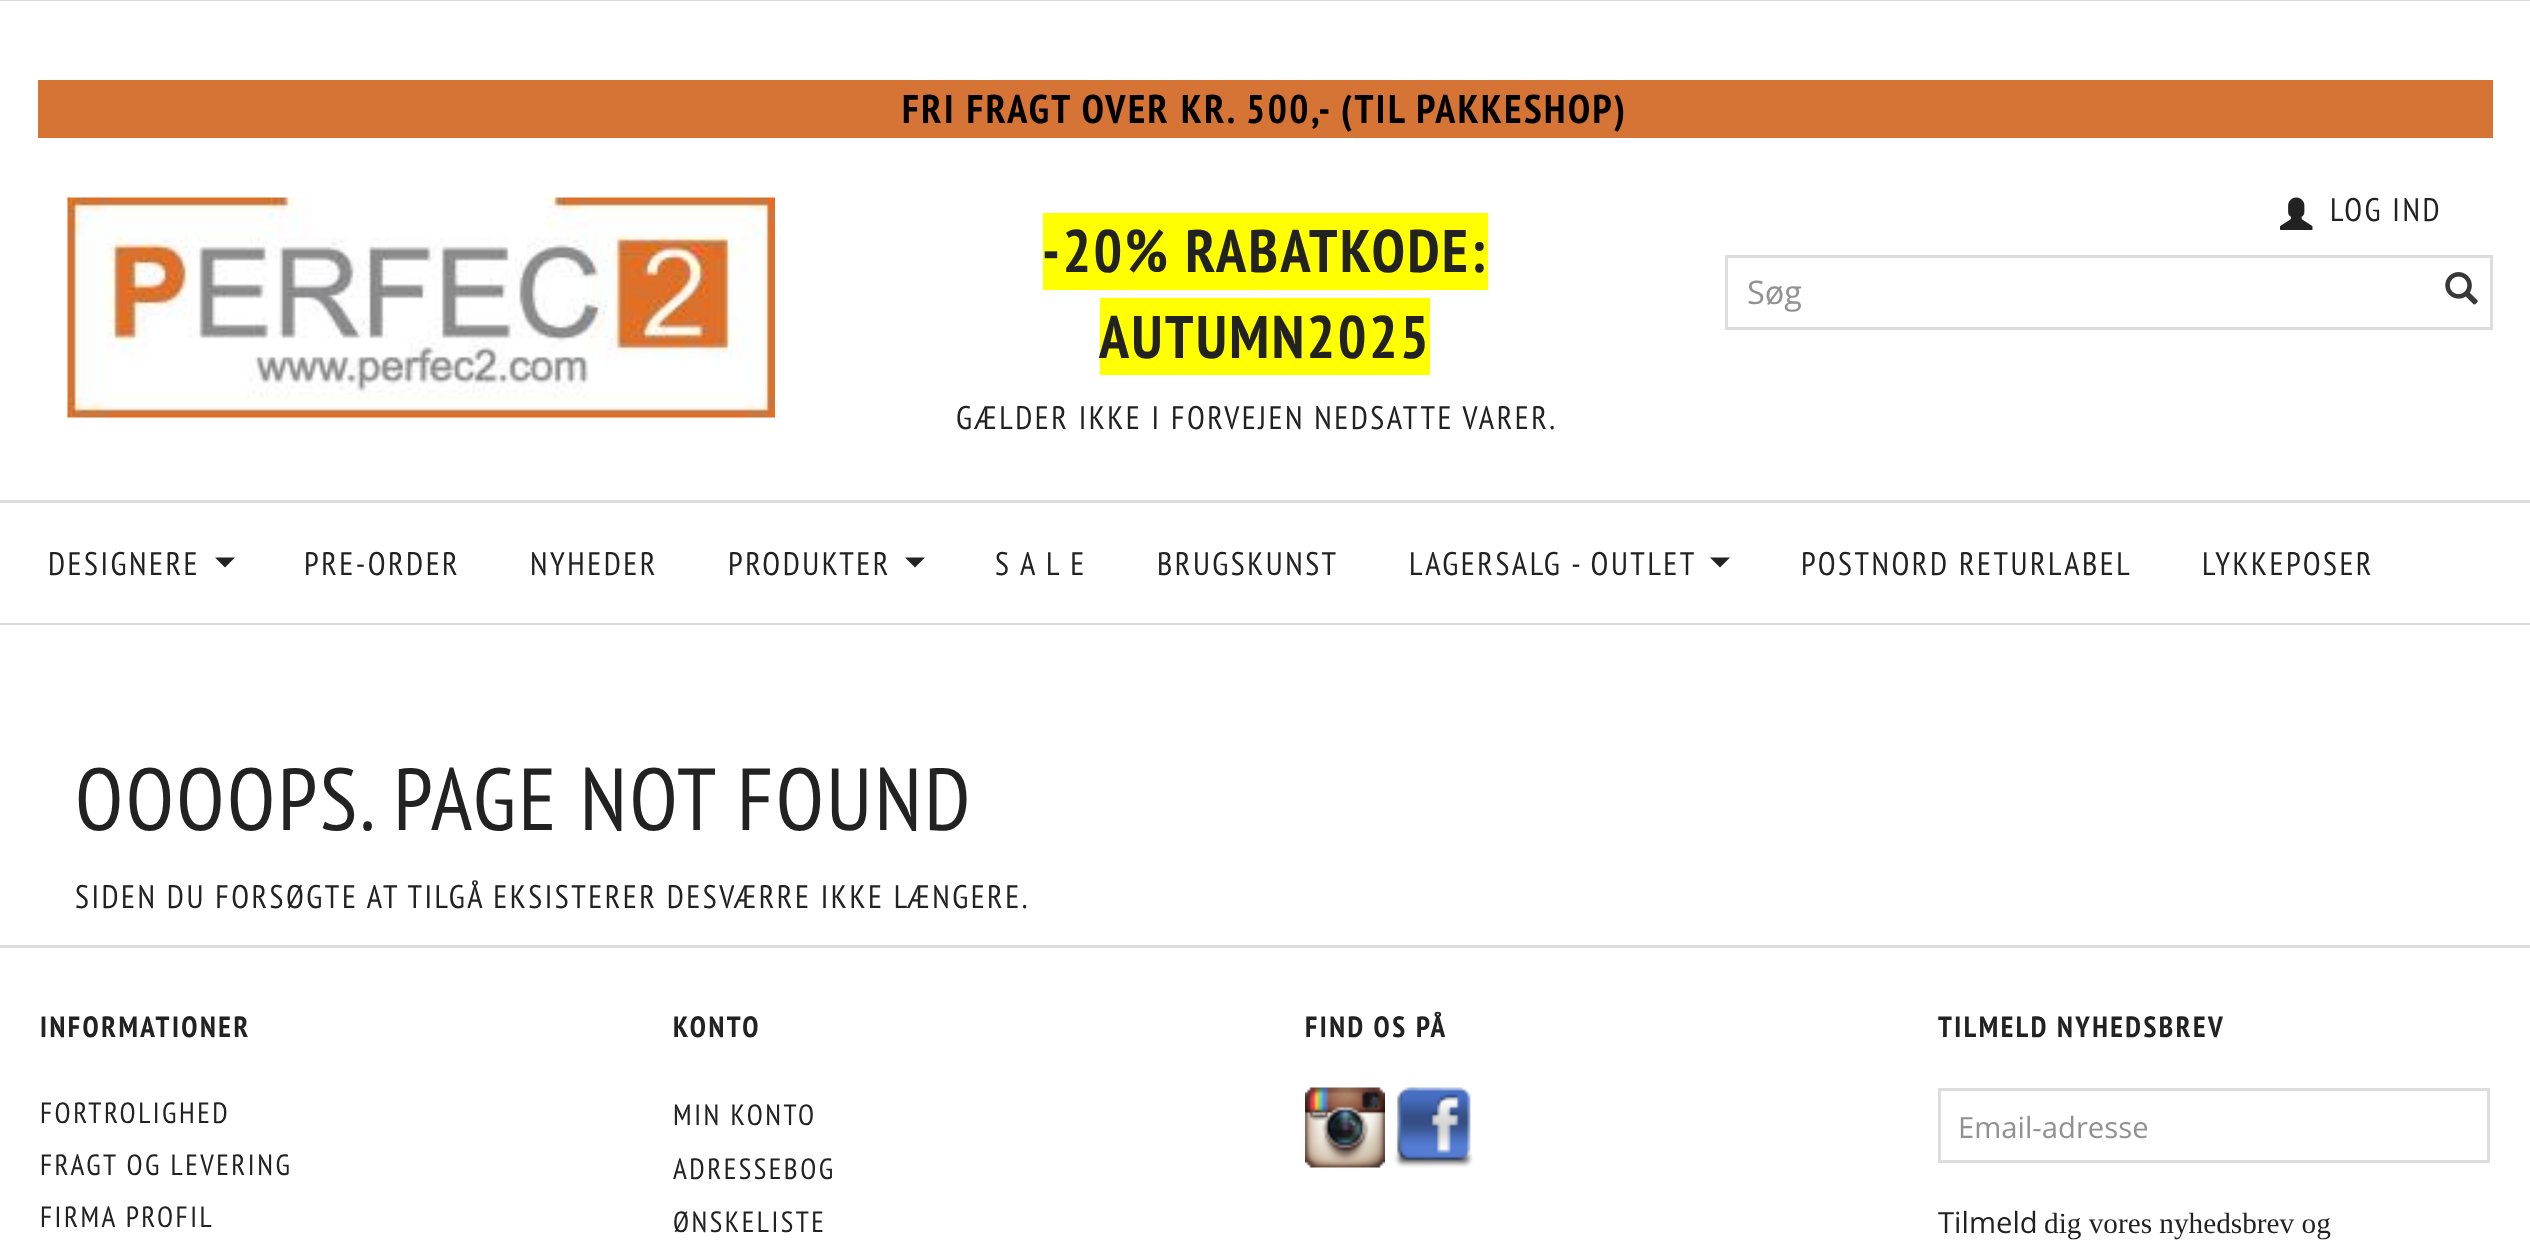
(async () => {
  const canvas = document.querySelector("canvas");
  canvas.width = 2530;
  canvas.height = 1257;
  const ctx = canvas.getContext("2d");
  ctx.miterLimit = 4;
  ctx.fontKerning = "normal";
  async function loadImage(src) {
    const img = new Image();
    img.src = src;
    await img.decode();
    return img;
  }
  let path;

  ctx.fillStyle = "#ffffff";
  ctx.fillRect(0, 0, 2530, 1257);
  ctx.fillStyle = "#dddddd";
  ctx.fillRect(0, 0, 2530, 1);
  ctx.fillStyle = "#d57434";
  ctx.fillRect(38, 80, 2455, 58);
  ctx.drawImage(await loadImage("img/1.png"), 67, 197, 708, 221);
  ctx.fillStyle = "#ffff00";
  ctx.fillRect(1043, 213, 445, 77);
  ctx.fillRect(1100, 298, 330, 77);
  ctx.drawImage(await loadImage("img/2.png"), 2280, 197, 33, 33);
  ctx.strokeStyle = "#dddddd";
  ctx.lineWidth = 3;
  ctx.strokeRect(1726.5, 256.5, 765, 72);
  ctx.drawImage(await loadImage("img/3.png"), 2445, 272, 33, 33);
  ctx.fillStyle = "#dddddd";
  ctx.fillRect(0, 500, 2530, 3);
  ctx.fillRect(0, 623, 2530, 2);
  ctx.fillStyle = "#222222";
  path = new Path2D("M215 557.5H235L225 567.5Z");
  ctx.fill(path);
  path = new Path2D("M905 557.5H925L915 567.5Z");
  ctx.fill(path);
  path = new Path2D("M1710 557.5H1730L1720 567.5Z");
  ctx.fill(path);
  ctx.fillStyle = "#dddddd";
  ctx.fillRect(0, 945, 2530, 3);
  ctx.drawImage(await loadImage("img/4.png"), 1305, 1087, 80, 81);
  ctx.drawImage(await loadImage("img/5.png"), 1394, 1087, 79, 81);
  ctx.strokeRect(1939.5, 1089.5, 549, 72);
  ctx.letterSpacing = "2.5px";
  ctx.font = "bold 40px PT Sans Narrow";
  ctx.fillStyle = "#000000";
  ctx.fillText("FRI FRAGT OVER KR. 500,- (TIL PAKKESHOP)", 902, 123);
  ctx.font = "bold 60px PT Sans Narrow";
  ctx.fillStyle = "#222222";
  ctx.fillText("-20% RABATKODE:", 1042, 272);
  ctx.fillText("AUTUMN2025", 1099, 358);
  ctx.font = "32.5px PT Sans Narrow";
  ctx.fillText("GÆLDER IKKE I FORVEJEN NEDSATTE VARER.", 956, 429);
  ctx.fillText("LOG IND", 2330, 221);
  ctx.letterSpacing = "0px";
  ctx.font = "32.5px Open Sans";
  ctx.fillStyle = "#919191";
  ctx.fillText("Søg", 1747, 304);
  ctx.letterSpacing = "2.5px";
  ctx.font = "32.5px PT Sans Narrow";
  ctx.fillStyle = "#222222";
  for (const [text, x, y] of [
    ["DESIGNERE", 48, 575],
    ["PRE-ORDER", 304, 575],
    ["NYHEDER", 530, 575],
    ["PRODUKTER", 728, 575],
    ["S A L E", 995, 575],
    ["BRUGSKUNST", 1157, 575],
    ["LAGERSALG - OUTLET", 1409, 575],
    ["POSTNORD RETURLABEL", 1801, 575],
    ["LYKKEPOSER", 2202, 575],
  ]) {
    ctx.fillText(text, x, y);
  }
  ctx.font = "87.75px PT Sans Narrow";
  ctx.fillText("OOOOPS. PAGE NOT FOUND", 75, 830);
  ctx.font = "32.5px PT Sans Narrow";
  ctx.fillText("SIDEN DU FORSØGTE AT TILGÅ EKSISTERER DESVÆRRE IKKE LÆNGERE.", 75, 908);
  ctx.font = "bold 29.25px PT Sans Narrow";
  ctx.fillText("INFORMATIONER", 40, 1037);
  ctx.font = "29.25px PT Sans Narrow";
  for (const [text, x, y] of [
    ["FORTROLIGHED", 40, 1123],
    ["FRAGT OG LEVERING", 40, 1175],
    ["FIRMA PROFIL", 40, 1227],
  ]) {
    ctx.fillText(text, x, y);
  }
  ctx.font = "bold 29.25px PT Sans Narrow";
  ctx.fillText("KONTO", 673, 1037);
  ctx.font = "29.25px PT Sans Narrow";
  for (const [text, x, y] of [
    ["MIN KONTO", 673, 1125],
    ["ADRESSEBOG", 673, 1179],
    ["ØNSKELISTE", 673, 1232],
  ]) {
    ctx.fillText(text, x, y);
  }
  ctx.font = "bold 29.25px PT Sans Narrow";
  ctx.fillText("FIND OS PÅ", 1305, 1037);
  ctx.fillText("TILMELD NYHEDSBREV", 1938, 1037);
  ctx.letterSpacing = "0px";
  ctx.font = "29.25px Open Sans";
  ctx.fillStyle = "#919191";
  ctx.fillText("Email-adresse", 1958, 1138);
  ctx.save();
  ctx.beginPath();
  ctx.rect(1938, 1200, 552, 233);
  ctx.clip();
  ctx.fillStyle = "#222222";
  ctx.fillText("Tilmeld", 1938, 1233);
  ctx.restore();
  ctx.font = "29.25px Liberation Serif";
  ctx.fillStyle = "#222222";
  ctx.fillText("dig vores nyhedsbrev og", 2044, 1233);
})();
